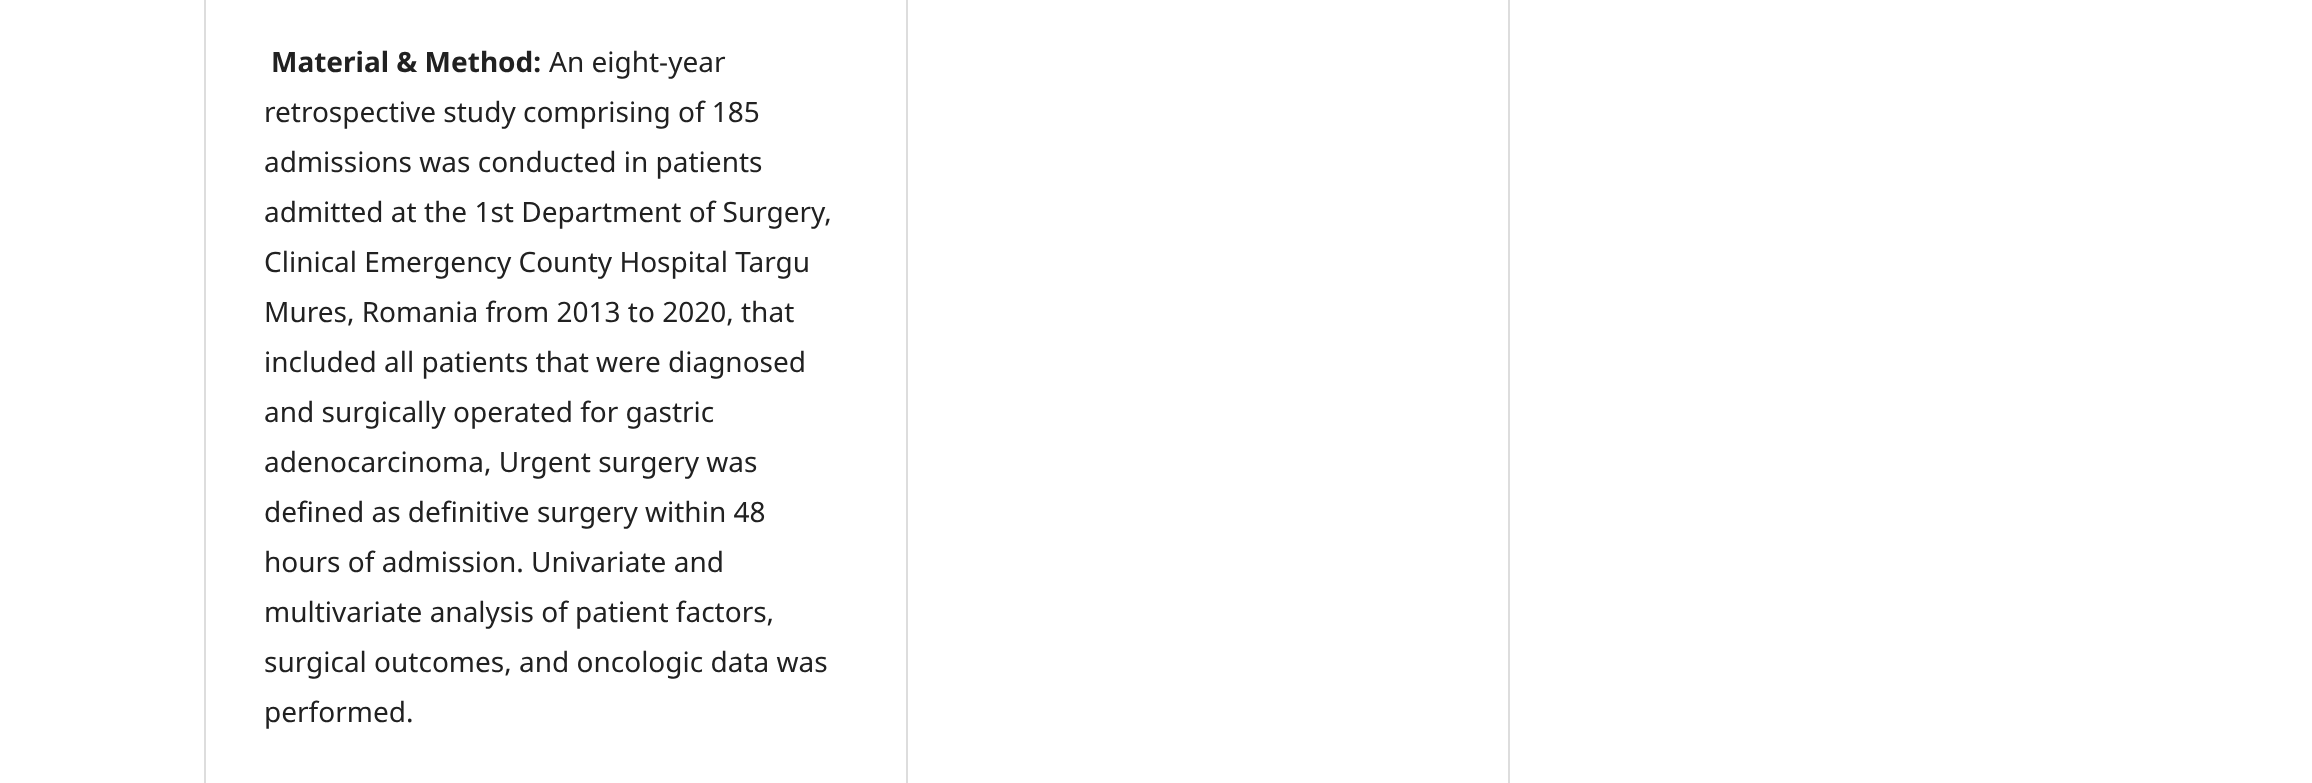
(async () => {
  const canvas = document.querySelector("canvas");
  canvas.width = 2312;
  canvas.height = 783;
  const ctx = canvas.getContext("2d");
  ctx.miterLimit = 4;
  ctx.fontKerning = "normal";

  ctx.fillStyle = "#ffffff";
  ctx.fillRect(0, 0, 2312, 783);
  for (const [x, y, w, h, color] of [
    [204, 0, 2, 783, "#dddddd"],
    [906, 0, 2, 783, "#dddddd"],
    [1508, 0, 2, 783, "#dddddd"],
  ]) {
    ctx.fillStyle = color;
    ctx.fillRect(x, y, w, h);
  }
  ctx.font = "bold 28px Noto Sans";
  ctx.fillStyle = "#212121";
  ctx.fillText("Material & Method:", 271, 72);
  ctx.font = "28px Noto Sans";
  for (const [text, x, y] of [
    ["An eight-year", 549, 72],
    ["retrospective study comprising of 185", 264, 122],
    ["admissions was conducted in patients", 264, 172],
    ["admitted at the 1st Department of Surgery,", 264, 222],
    ["Clinical Emergency County Hospital Targu", 264, 272],
    ["Mures, Romania from 2013 to 2020, that", 264, 322],
    ["included all patients that were diagnosed", 264, 372],
    ["and surgically operated for gastric", 264, 422],
    ["adenocarcinoma, Urgent surgery was", 264, 472],
    ["defined as definitive surgery within 48", 264, 522],
    ["hours of admission. Univariate and", 264, 572],
    ["multivariate analysis of patient factors,", 264, 622],
    ["surgical outcomes, and oncologic data was", 264, 672],
    ["performed.", 264, 722],
  ]) {
    ctx.fillText(text, x, y);
  }
})();
